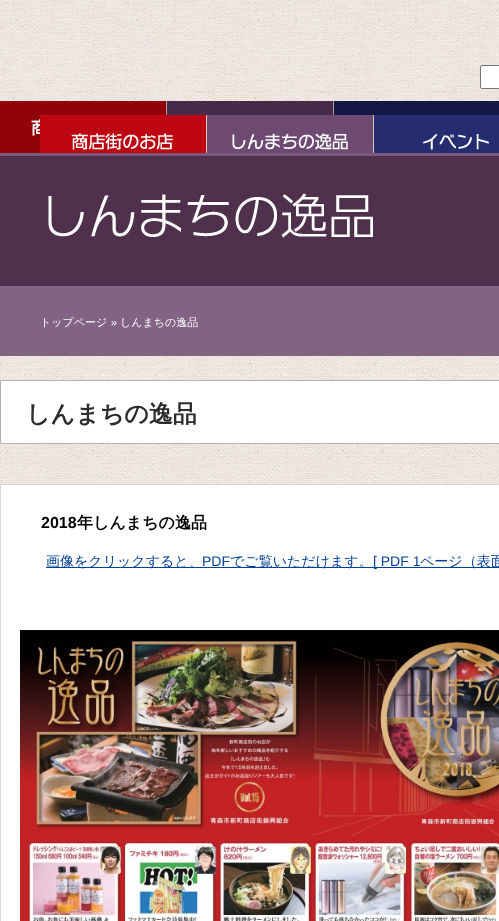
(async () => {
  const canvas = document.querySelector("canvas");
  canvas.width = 499;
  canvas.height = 921;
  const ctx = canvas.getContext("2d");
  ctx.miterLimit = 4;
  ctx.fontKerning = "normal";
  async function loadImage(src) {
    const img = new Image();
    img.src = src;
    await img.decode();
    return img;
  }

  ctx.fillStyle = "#ffffff";
  ctx.fillRect(0, 0, 499, 921);
  ctx.drawImage(await loadImage("img/1.png"), 0, 356, 499, 128);
  ctx.drawImage(await loadImage("img/2.png"), 0, 0, 499, 101);
  ctx.beginPath();
  ctx.roundRect(480.5, 65.5, 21, 23, 1.5);
  ctx.fill();
  ctx.strokeStyle = "#767676";
  ctx.stroke();
  ctx.drawImage(await loadImage("img/3.png"), 0, 101, 499, 52);
  ctx.drawImage(await loadImage("img/4.png"), 40, 115, 166, 38);
  ctx.drawImage(await loadImage("img/5.png"), 206, 115, 167, 38);
  ctx.drawImage(await loadImage("img/6.png"), 373, 115, 126, 38);
  ctx.fillStyle = "#785a7c";
  ctx.fillRect(0, 153, 499, 3);
  ctx.drawImage(await loadImage("img/7.png"), 0, 156, 499, 130);
  ctx.fillStyle = "#836384";
  ctx.fillRect(0, 286, 499, 70);
  ctx.fillStyle = "#ffffff";
  ctx.beginPath();
  ctx.rect(0.5, 380.5, 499, 63);
  ctx.fill();
  ctx.strokeStyle = "#b1b1b1";
  ctx.stroke();
  ctx.strokeStyle = "#d7d6d6";
  ctx.strokeRect(0.5, 484.5, 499, 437);
  ctx.fillStyle = "#014099";
  ctx.fillRect(46, 567, 453, 1);
  ctx.drawImage(await loadImage("img/8.png"), 20, 630, 479, 291);
  ctx.font = "500 11px WenQuanYi Zen Hei";
  ctx.fillStyle = "#ffffff";
  ctx.fillText("トップページ", 40, 326);
  ctx.font = "11px Liberation Sans";
  ctx.fillText("»", 111, 326);
  ctx.font = "500 11px WenQuanYi Zen Hei";
  ctx.fillText("しんまちの逸品", 120, 326);
  ctx.font = "bold 24px WenQuanYi Zen Hei";
  ctx.fillStyle = "#2c2c2c";
  ctx.fillText("しんまちの逸品", 26, 422);
  ctx.font = "bold 16px Liberation Sans";
  ctx.fillStyle = "#000000";
  ctx.fillText("2018", 41, 528);
  ctx.font = "bold 16px WenQuanYi Zen Hei";
  ctx.fillText("年しんまちの逸品", 77, 528);
  ctx.font = "500 14px WenQuanYi Zen Hei";
  ctx.fillStyle = "#014099";
  ctx.fillText("画像をクリックすると、", 46, 566);
  ctx.font = "14px Liberation Sans";
  ctx.fillText("PDF", 202, 566);
  ctx.font = "500 14px WenQuanYi Zen Hei";
  ctx.fillText("でご覧いただけます。", 230, 566);
  ctx.font = "14px Liberation Sans";
  ctx.fillText("[ PDF 1", 373, 566);
  ctx.font = "500 14px WenQuanYi Zen Hei";
  ctx.fillText("ページ（表面", 420, 566);
})();
